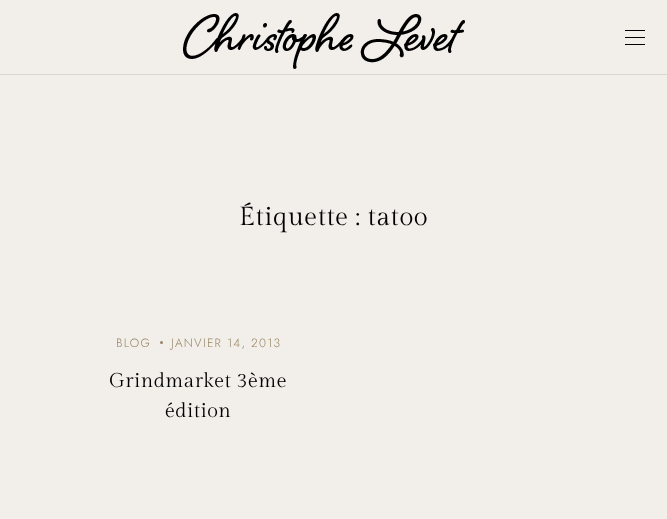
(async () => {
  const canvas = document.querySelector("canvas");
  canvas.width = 667;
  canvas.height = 519;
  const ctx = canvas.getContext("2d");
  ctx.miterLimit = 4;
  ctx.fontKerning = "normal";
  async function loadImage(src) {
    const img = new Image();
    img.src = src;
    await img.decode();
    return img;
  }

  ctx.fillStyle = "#f2efea";
  ctx.fillRect(0, 0, 667, 519);
  ctx.fillStyle = "#dad7d3";
  ctx.fillRect(0, 74, 667, 1);
  ctx.drawImage(await loadImage("img/1.png"), 183, 13, 282, 56);
  for (const [x, y, w, h, color] of [
    [625, 44, 20, 1, "#000000"],
    [625, 30, 20, 1, "#000000"],
    [625, 37, 20, 1, "#000000"],
  ]) {
    ctx.fillStyle = color;
    ctx.fillRect(x, y, w, h);
  }
  ctx.fillStyle = "#988463";
  ctx.beginPath();
  ctx.arc(161.5, 342.5, 1.5, 0, Math.PI * 2);
  ctx.fill();
  ctx.letterSpacing = "0.5px";
  ctx.font = "26px Gilda Display";
  ctx.fillStyle = "#000000";
  ctx.fillText("Étiquette : tatoo", 239, 225);
  ctx.letterSpacing = "1.25px";
  ctx.font = "300 12px Jost";
  ctx.fillStyle = "#988463";
  ctx.fillText("BLOG", 116, 347);
  ctx.fillText("JANVIER 14, 2013", 171, 347);
  ctx.letterSpacing = "0.4px";
  ctx.font = "20px Gilda Display";
  ctx.fillStyle = "#000000";
  ctx.fillText("Grindmarket 3ème", 109, 387);
  ctx.fillText("édition", 165, 417);
})();
